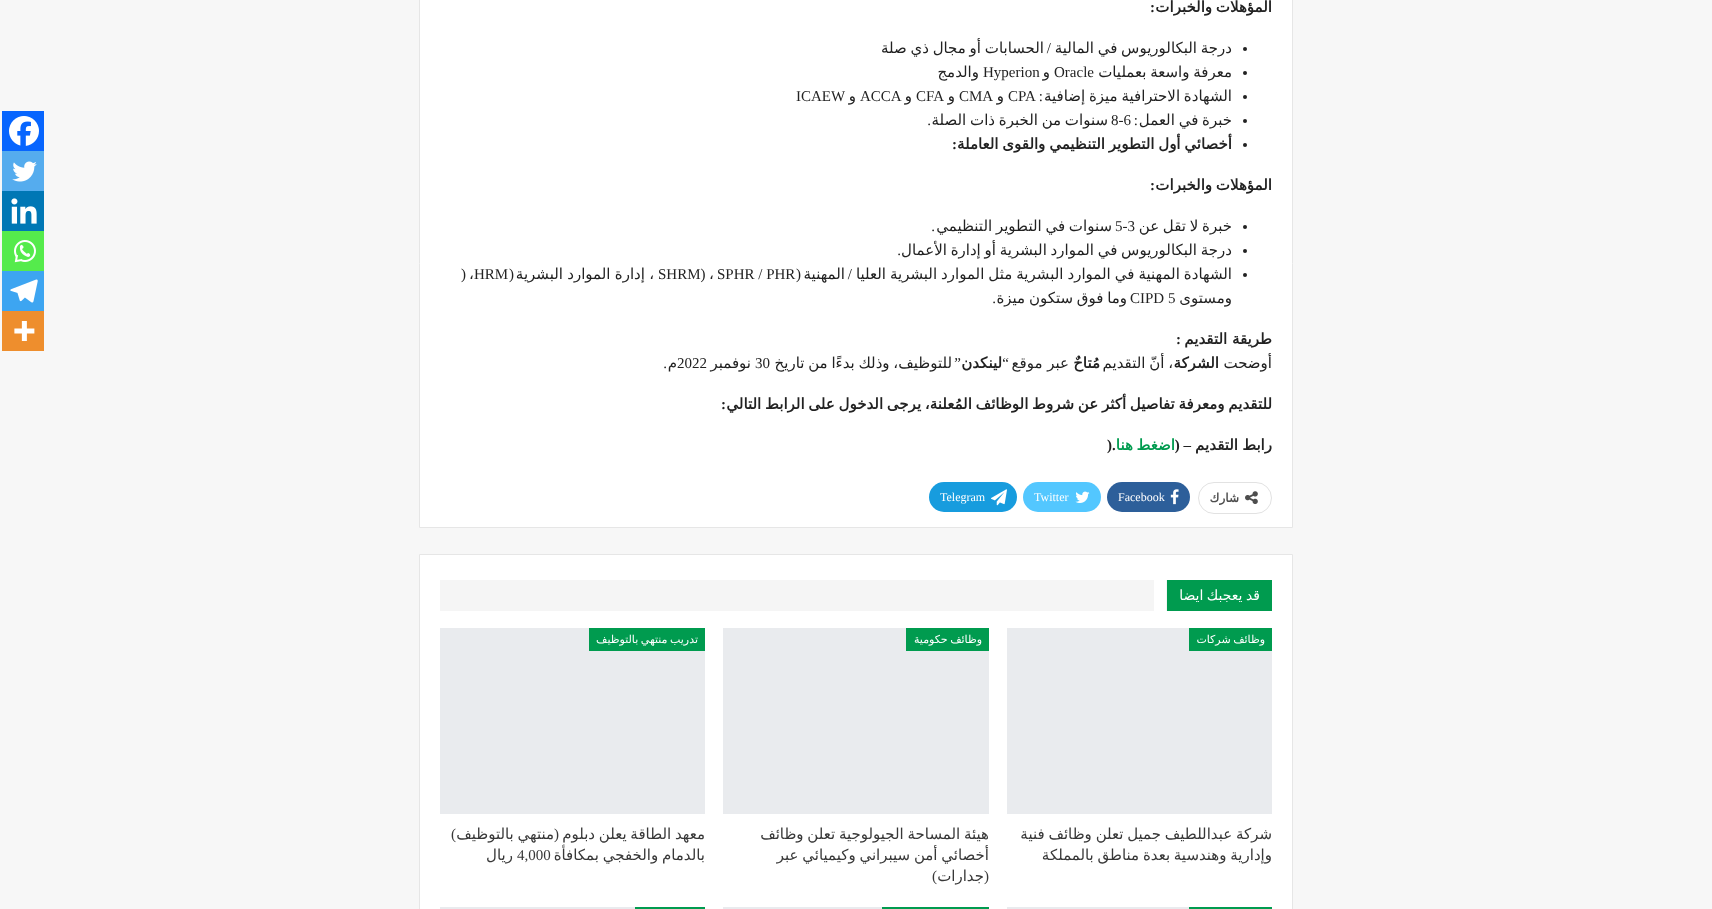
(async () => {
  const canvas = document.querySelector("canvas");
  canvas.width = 1712;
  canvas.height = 909;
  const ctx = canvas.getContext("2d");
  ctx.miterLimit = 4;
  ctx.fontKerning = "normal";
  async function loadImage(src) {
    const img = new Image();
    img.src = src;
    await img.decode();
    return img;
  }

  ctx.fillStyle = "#f7f7f7";
  ctx.fillRect(0, 0, 1712, 909);
  ctx.fillStyle = "#ffffff";
  ctx.beginPath();
  ctx.rect(419.5, -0.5, 873, 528);
  ctx.fill();
  ctx.strokeStyle = "#e6e6e6";
  ctx.stroke();
  ctx.fillStyle = "#222222";
  ctx.beginPath();
  ctx.arc(1245, 49, 2, 0, Math.PI * 2);
  ctx.fill();
  ctx.beginPath();
  ctx.arc(1245, 73, 2, 0, Math.PI * 2);
  ctx.fill();
  ctx.beginPath();
  ctx.arc(1245, 97, 2, 0, Math.PI * 2);
  ctx.fill();
  ctx.beginPath();
  ctx.arc(1245, 121, 2, 0, Math.PI * 2);
  ctx.fill();
  ctx.beginPath();
  ctx.arc(1245, 145, 2, 0, Math.PI * 2);
  ctx.fill();
  ctx.beginPath();
  ctx.arc(1245, 227, 2, 0, Math.PI * 2);
  ctx.fill();
  ctx.beginPath();
  ctx.arc(1245, 251, 2, 0, Math.PI * 2);
  ctx.fill();
  ctx.beginPath();
  ctx.arc(1245, 275, 2, 0, Math.PI * 2);
  ctx.fill();
  ctx.fillStyle = "#0765fe";
  ctx.fillRect(2, 111, 42, 40);
  ctx.drawImage(await loadImage("img/1.png"), 9, 116, 30, 30);
  ctx.fillStyle = "#55acee";
  ctx.fillRect(2, 151, 42, 40);
  ctx.drawImage(await loadImage("img/2.png"), 12, 161, 25, 21);
  ctx.fillStyle = "#0077b5";
  ctx.fillRect(2, 191, 42, 40);
  ctx.drawImage(await loadImage("img/3.png"), 11, 198, 26, 26);
  ctx.fillStyle = "#55eb4c";
  ctx.fillRect(2, 231, 42, 40);
  ctx.drawImage(await loadImage("img/4.png"), 14, 240, 22, 23);
  ctx.fillStyle = "#3da5f1";
  ctx.fillRect(2, 271, 42, 40);
  ctx.drawImage(await loadImage("img/5.png"), 10, 279, 28, 24);
  ctx.fillStyle = "#ee8e2d";
  ctx.fillRect(2, 311, 42, 40);
  ctx.drawImage(await loadImage("img/6.png"), 14, 321, 21, 20);
  ctx.beginPath();
  ctx.roundRect(1198.5, 482.5, 73, 31, 15.5);
  ctx.strokeStyle = "#e2e2e2";
  ctx.stroke();
  ctx.drawImage(await loadImage("img/7.png"), 1245, 491, 13, 14);
  ctx.fillStyle = "#2d5f9a";
  ctx.beginPath();
  ctx.roundRect(1107, 482, 83, 30, 15);
  ctx.fill();
  ctx.drawImage(await loadImage("img/8.png"), 1170, 489, 9, 16);
  ctx.fillStyle = "#53c7ff";
  ctx.beginPath();
  ctx.roundRect(1023, 482, 78, 30, 15);
  ctx.fill();
  ctx.drawImage(await loadImage("img/9.png"), 1075, 491, 15, 12);
  ctx.fillStyle = "#179cde";
  ctx.beginPath();
  ctx.roundRect(929, 482, 88, 30, 15);
  ctx.fill();
  ctx.drawImage(await loadImage("img/10.png"), 991, 489, 16, 17);
  ctx.fillStyle = "#ffffff";
  ctx.beginPath();
  ctx.rect(419.5, 554.5, 873, 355);
  ctx.fill();
  ctx.strokeStyle = "#e6e6e6";
  ctx.stroke();
  for (const [x, y, w, h, color] of [
    [1167, 580, 105, 31, "#009b4f"],
    [440, 580, 727, 31, "#f5f5f5"],
    [1154, 580, 12, 31, "#ffffff"],
    [1007, 628, 265, 186, "#e9ebee"],
    [1189, 628, 83, 23, "#009b4f"],
    [723, 628, 266, 186, "#e9ebee"],
    [906, 628, 83, 23, "#009b4f"],
    [440, 628, 265, 186, "#e9ebee"],
    [589, 628, 116, 23, "#009b4f"],
    [1189, 907, 83, 2, "#009b4f"],
    [1007, 907, 182, 2, "#e9ebee"],
    [882, 907, 107, 2, "#009b4f"],
    [723, 907, 159, 2, "#e9ebee"],
    [635, 907, 70, 2, "#009b4f"],
    [440, 907, 195, 2, "#e9ebee"],
  ]) {
    ctx.fillStyle = color;
    ctx.fillRect(x, y, w, h);
  }
  ctx.wordSpacing = "-1px";
  ctx.direction = "rtl";
  ctx.font = "bold 15px DejaVu Sans";
  ctx.fillStyle = "#222222";
  ctx.fillText("المؤهلات والخبرات", 1272, 12);
  ctx.wordSpacing = "0px";
  ctx.font = "bold 15px Liberation Serif";
  ctx.fillText(":", 1155, 12);
  ctx.wordSpacing = "-1px";
  ctx.font = "15px DejaVu Sans";
  ctx.fillText("درجة البكالوريوس في المالية", 1232, 53);
  ctx.wordSpacing = "0px";
  ctx.font = "15px Liberation Serif";
  ctx.fillText("/", 1051, 53);
  ctx.wordSpacing = "-1px";
  ctx.font = "15px DejaVu Sans";
  ctx.fillText("الحسابات أو مجال ذي صلة", 1044, 53);
  ctx.fillText("معرفة واسعة بعمليات", 1232, 77);
  ctx.wordSpacing = "0px";
  ctx.direction = "ltr";
  ctx.font = "15px Liberation Serif";
  ctx.fillText("Oracle", 1054, 77);
  ctx.direction = "rtl";
  ctx.font = "15px DejaVu Sans";
  ctx.fillText("و", 1050, 77);
  ctx.direction = "ltr";
  ctx.font = "15px Liberation Serif";
  ctx.fillText("Hyperion", 983, 77);
  ctx.direction = "rtl";
  ctx.font = "15px DejaVu Sans";
  ctx.fillText("والدمج", 979, 77);
  ctx.wordSpacing = "-1px";
  ctx.fillText("الشهادة الاحترافية ميزة إضافية", 1232, 101);
  ctx.wordSpacing = "0px";
  ctx.font = "15px Liberation Serif";
  ctx.fillText(":", 1043, 101);
  ctx.direction = "ltr";
  ctx.fillText("CPA", 1008, 101);
  ctx.direction = "rtl";
  ctx.font = "15px DejaVu Sans";
  ctx.fillText("و", 1004, 101);
  ctx.direction = "ltr";
  ctx.font = "15px Liberation Serif";
  ctx.fillText("CMA", 959, 101);
  ctx.direction = "rtl";
  ctx.font = "15px DejaVu Sans";
  ctx.fillText("و", 955, 101);
  ctx.direction = "ltr";
  ctx.font = "15px Liberation Serif";
  ctx.fillText("CFA", 916, 101);
  ctx.direction = "rtl";
  ctx.font = "15px DejaVu Sans";
  ctx.fillText("و", 912, 101);
  ctx.direction = "ltr";
  ctx.font = "15px Liberation Serif";
  ctx.fillText("ACCA", 860, 101);
  ctx.direction = "rtl";
  ctx.font = "15px DejaVu Sans";
  ctx.fillText("و", 856, 101);
  ctx.direction = "ltr";
  ctx.font = "15px Liberation Serif";
  ctx.fillText("ICAEW", 796, 101);
  ctx.wordSpacing = "-1px";
  ctx.direction = "rtl";
  ctx.font = "15px DejaVu Sans";
  ctx.fillText("خبرة في العمل", 1232, 125);
  ctx.wordSpacing = "0px";
  ctx.font = "15px Liberation Serif";
  ctx.fillText(":", 1138, 125);
  ctx.direction = "ltr";
  ctx.fillText("8-6", 1111, 125);
  ctx.wordSpacing = "-1px";
  ctx.direction = "rtl";
  ctx.font = "15px DejaVu Sans";
  ctx.fillText("سنوات من الخبرة ذات الصلة", 1108, 125);
  ctx.wordSpacing = "0px";
  ctx.font = "15px Liberation Serif";
  ctx.fillText(".", 931, 125);
  ctx.wordSpacing = "-1px";
  ctx.font = "bold 15px DejaVu Sans";
  ctx.fillText("أخصائي أول التطوير التنظيمي والقوى العاملة", 1232, 149);
  ctx.wordSpacing = "0px";
  ctx.font = "bold 15px Liberation Serif";
  ctx.fillText(":", 957, 149);
  ctx.wordSpacing = "-1px";
  ctx.font = "bold 15px DejaVu Sans";
  ctx.fillText("المؤهلات والخبرات", 1272, 190);
  ctx.wordSpacing = "0px";
  ctx.font = "bold 15px Liberation Serif";
  ctx.fillText(":", 1155, 190);
  ctx.wordSpacing = "-1px";
  ctx.font = "15px DejaVu Sans";
  ctx.fillText("خبرة لا تقل عن", 1232, 231);
  ctx.wordSpacing = "0px";
  ctx.direction = "ltr";
  ctx.font = "15px Liberation Serif";
  ctx.fillText("5-3", 1115, 231);
  ctx.wordSpacing = "-1px";
  ctx.direction = "rtl";
  ctx.font = "15px DejaVu Sans";
  ctx.fillText("سنوات في التطوير التنظيمي", 1112, 231);
  ctx.wordSpacing = "0px";
  ctx.font = "15px Liberation Serif";
  ctx.fillText(".", 935, 231);
  ctx.wordSpacing = "-1px";
  ctx.font = "15px DejaVu Sans";
  ctx.fillText("درجة البكالوريوس في الموارد البشرية أو إدارة الأعمال", 1232, 255);
  ctx.wordSpacing = "0px";
  ctx.font = "15px Liberation Serif";
  ctx.fillText(".", 901, 255);
  ctx.wordSpacing = "-0.75px";
  ctx.font = "15px DejaVu Sans";
  ctx.fillText("الشهادة المهنية في الموارد البشرية مثل الموارد البشرية العليا", 1232, 279);
  ctx.wordSpacing = "0px";
  ctx.font = "15px Liberation Serif";
  ctx.fillText("/", 852, 279);
  ctx.font = "15px DejaVu Sans";
  ctx.fillText("المهنية", 845, 279);
  ctx.font = "15px Liberation Serif";
  ctx.fillText("(", 801, 279);
  ctx.direction = "ltr";
  ctx.fillText("SPHR / PHR", 717, 279);
  ctx.font = "15px DejaVu Sans";
  ctx.fillText("،", 709, 279);
  ctx.font = "15px Liberation Serif";
  ctx.fillText("SHRM)", 658, 279);
  ctx.wordSpacing = "-0.5px";
  ctx.direction = "rtl";
  ctx.font = "15px DejaVu Sans";
  ctx.fillText("، إدارة الموارد البشرية", 654, 279);
  ctx.wordSpacing = "0px";
  ctx.font = "15px Liberation Serif";
  ctx.fillText("(", 514, 279);
  ctx.direction = "ltr";
  ctx.fillText("HRM", 474, 279);
  ctx.font = "15px DejaVu Sans";
  ctx.fillText("،", 469, 279);
  ctx.font = "15px Liberation Serif";
  ctx.fillText(")", 461, 279);
  ctx.direction = "rtl";
  ctx.font = "15px DejaVu Sans";
  ctx.fillText("ومستوى", 1232, 303);
  ctx.direction = "ltr";
  ctx.font = "15px Liberation Serif";
  ctx.fillText("CIPD 5", 1130, 303);
  ctx.wordSpacing = "-1px";
  ctx.direction = "rtl";
  ctx.font = "15px DejaVu Sans";
  ctx.fillText("وما فوق ستكون ميزة", 1127, 303);
  ctx.wordSpacing = "0px";
  ctx.font = "15px Liberation Serif";
  ctx.fillText(".", 996, 303);
  ctx.font = "bold 15px DejaVu Sans";
  ctx.fillText("طريقة التقديم", 1272, 344);
  ctx.font = "bold 15px Liberation Serif";
  ctx.fillText(":", 1181, 344);
  ctx.font = "15px DejaVu Sans";
  ctx.fillText("أوضحت", 1272, 368);
  ctx.font = "bold 15px DejaVu Sans";
  ctx.fillText("الشركة", 1219, 368);
  ctx.wordSpacing = "-1px";
  ctx.font = "15px DejaVu Sans";
  ctx.fillText("، أنّ التقديم", 1173, 368);
  ctx.wordSpacing = "0px";
  ctx.font = "bold 15px DejaVu Sans";
  ctx.fillText("مُتاحٌ", 1100, 368);
  ctx.font = "15px DejaVu Sans";
  ctx.fillText("عبر موقع", 1069, 368);
  ctx.font = "15px Liberation Serif";
  ctx.fillText("“", 1009, 368);
  ctx.font = "bold 15px DejaVu Sans";
  ctx.fillText("لينكدن", 1002, 368);
  ctx.font = "15px Liberation Serif";
  ctx.fillText("”", 961, 368);
  ctx.wordSpacing = "-1px";
  ctx.font = "15px DejaVu Sans";
  ctx.fillText("للتوظيف، وذلك بدءًا من تاريخ", 952, 368);
  ctx.wordSpacing = "0px";
  ctx.direction = "ltr";
  ctx.font = "15px Liberation Serif";
  ctx.fillText("30", 755, 368);
  ctx.direction = "rtl";
  ctx.font = "15px DejaVu Sans";
  ctx.fillText("نوفمبر", 751, 368);
  ctx.direction = "ltr";
  ctx.font = "15px Liberation Serif";
  ctx.fillText("2022", 677, 368);
  ctx.direction = "rtl";
  ctx.font = "15px DejaVu Sans";
  ctx.fillText("م", 677, 368);
  ctx.font = "15px Liberation Serif";
  ctx.fillText(".", 667, 368);
  ctx.wordSpacing = "-1px";
  ctx.font = "bold 15px DejaVu Sans";
  ctx.fillText("للتقديم ومعرفة تفاصيل أكثر عن شروط الوظائف المُعلنة، يرجى الدخول على الرابط التالي", 1272, 409);
  ctx.wordSpacing = "0px";
  ctx.font = "bold 15px Liberation Serif";
  ctx.fillText(":", 726, 409);
  ctx.font = "bold 15px DejaVu Sans";
  ctx.fillText("رابط", 1272, 450);
  ctx.fillText("التقديم", 1238, 450);
  ctx.font = "bold 15px Liberation Serif";
  ctx.fillText("– (", 1191, 450);
  ctx.wordSpacing = "-1px";
  ctx.font = "bold 15px DejaVu Sans";
  ctx.fillStyle = "#009b4f";
  ctx.fillText("اضغط هنا", 1175, 450);
  ctx.wordSpacing = "0px";
  ctx.direction = "ltr";
  ctx.font = "bold 15px Liberation Serif";
  ctx.fillStyle = "#222222";
  ctx.fillText(").", 1107, 450);
  ctx.direction = "rtl";
  ctx.font = "bold 12px DejaVu Sans";
  ctx.fillStyle = "#4d4d4d";
  ctx.fillText("شارك", 1239, 502);
  ctx.direction = "ltr";
  ctx.font = "12px Liberation Serif";
  ctx.fillStyle = "#ffffff";
  for (const [text, x, y] of [
    ["Facebook", 1118, 501],
    ["Twitter", 1034, 501],
    ["Telegram", 940, 501],
  ]) {
    ctx.fillText(text, x, y);
  }
  ctx.wordSpacing = "-1px";
  ctx.direction = "rtl";
  ctx.font = "14px DejaVu Sans";
  ctx.fillText("قد يعجبك ايضا", 1260, 600);
  ctx.font = "11px DejaVu Sans";
  ctx.fillText("وظائف شركات", 1265, 643);
  ctx.font = "15px DejaVu Sans";
  ctx.fillStyle = "#383838";
  ctx.fillText("شركة عبداللطيف جميل تعلن وظائف فنية", 1272, 839);
  ctx.fillText("وإدارية وهندسية بعدة مناطق بالمملكة", 1272, 860);
  ctx.font = "11px DejaVu Sans";
  ctx.fillStyle = "#ffffff";
  ctx.fillText("وظائف حكومية", 982, 643);
  ctx.font = "15px DejaVu Sans";
  ctx.fillStyle = "#383838";
  ctx.fillText("هيئة المساحة الجيولوجية تعلن وظائف", 989, 839);
  ctx.fillText("أخصائي أمن سيبراني وكيميائي عبر", 989, 860);
  ctx.wordSpacing = "0px";
  ctx.font = "15px Liberation Serif";
  ctx.fillText("(", 989, 881);
  ctx.font = "15px DejaVu Sans";
  ctx.fillText("جدارات", 984, 881);
  ctx.font = "15px Liberation Serif";
  ctx.fillText(")", 937, 881);
  ctx.wordSpacing = "-1px";
  ctx.font = "11px DejaVu Sans";
  ctx.fillStyle = "#ffffff";
  ctx.fillText("تدريب منتهي بالتوظيف", 698, 643);
  ctx.font = "15px DejaVu Sans";
  ctx.fillStyle = "#383838";
  ctx.fillText("معهد الطاقة يعلن دبلوم", 705, 839);
  ctx.wordSpacing = "0px";
  ctx.font = "15px Liberation Serif";
  ctx.fillText("(", 559, 839);
  ctx.wordSpacing = "-1px";
  ctx.font = "15px DejaVu Sans";
  ctx.fillText("منتهي بالتوظيف", 554, 839);
  ctx.wordSpacing = "0px";
  ctx.font = "15px Liberation Serif";
  ctx.fillText(")", 456, 839);
  ctx.wordSpacing = "-1px";
  ctx.font = "15px DejaVu Sans";
  ctx.fillText("بالدمام والخفجي بمكافأة", 705, 860);
  ctx.wordSpacing = "0px";
  ctx.direction = "ltr";
  ctx.font = "15px Liberation Serif";
  ctx.fillText("4,000", 517, 860);
  ctx.direction = "rtl";
  ctx.font = "15px DejaVu Sans";
  ctx.fillText("ريال", 513, 860);
})();
